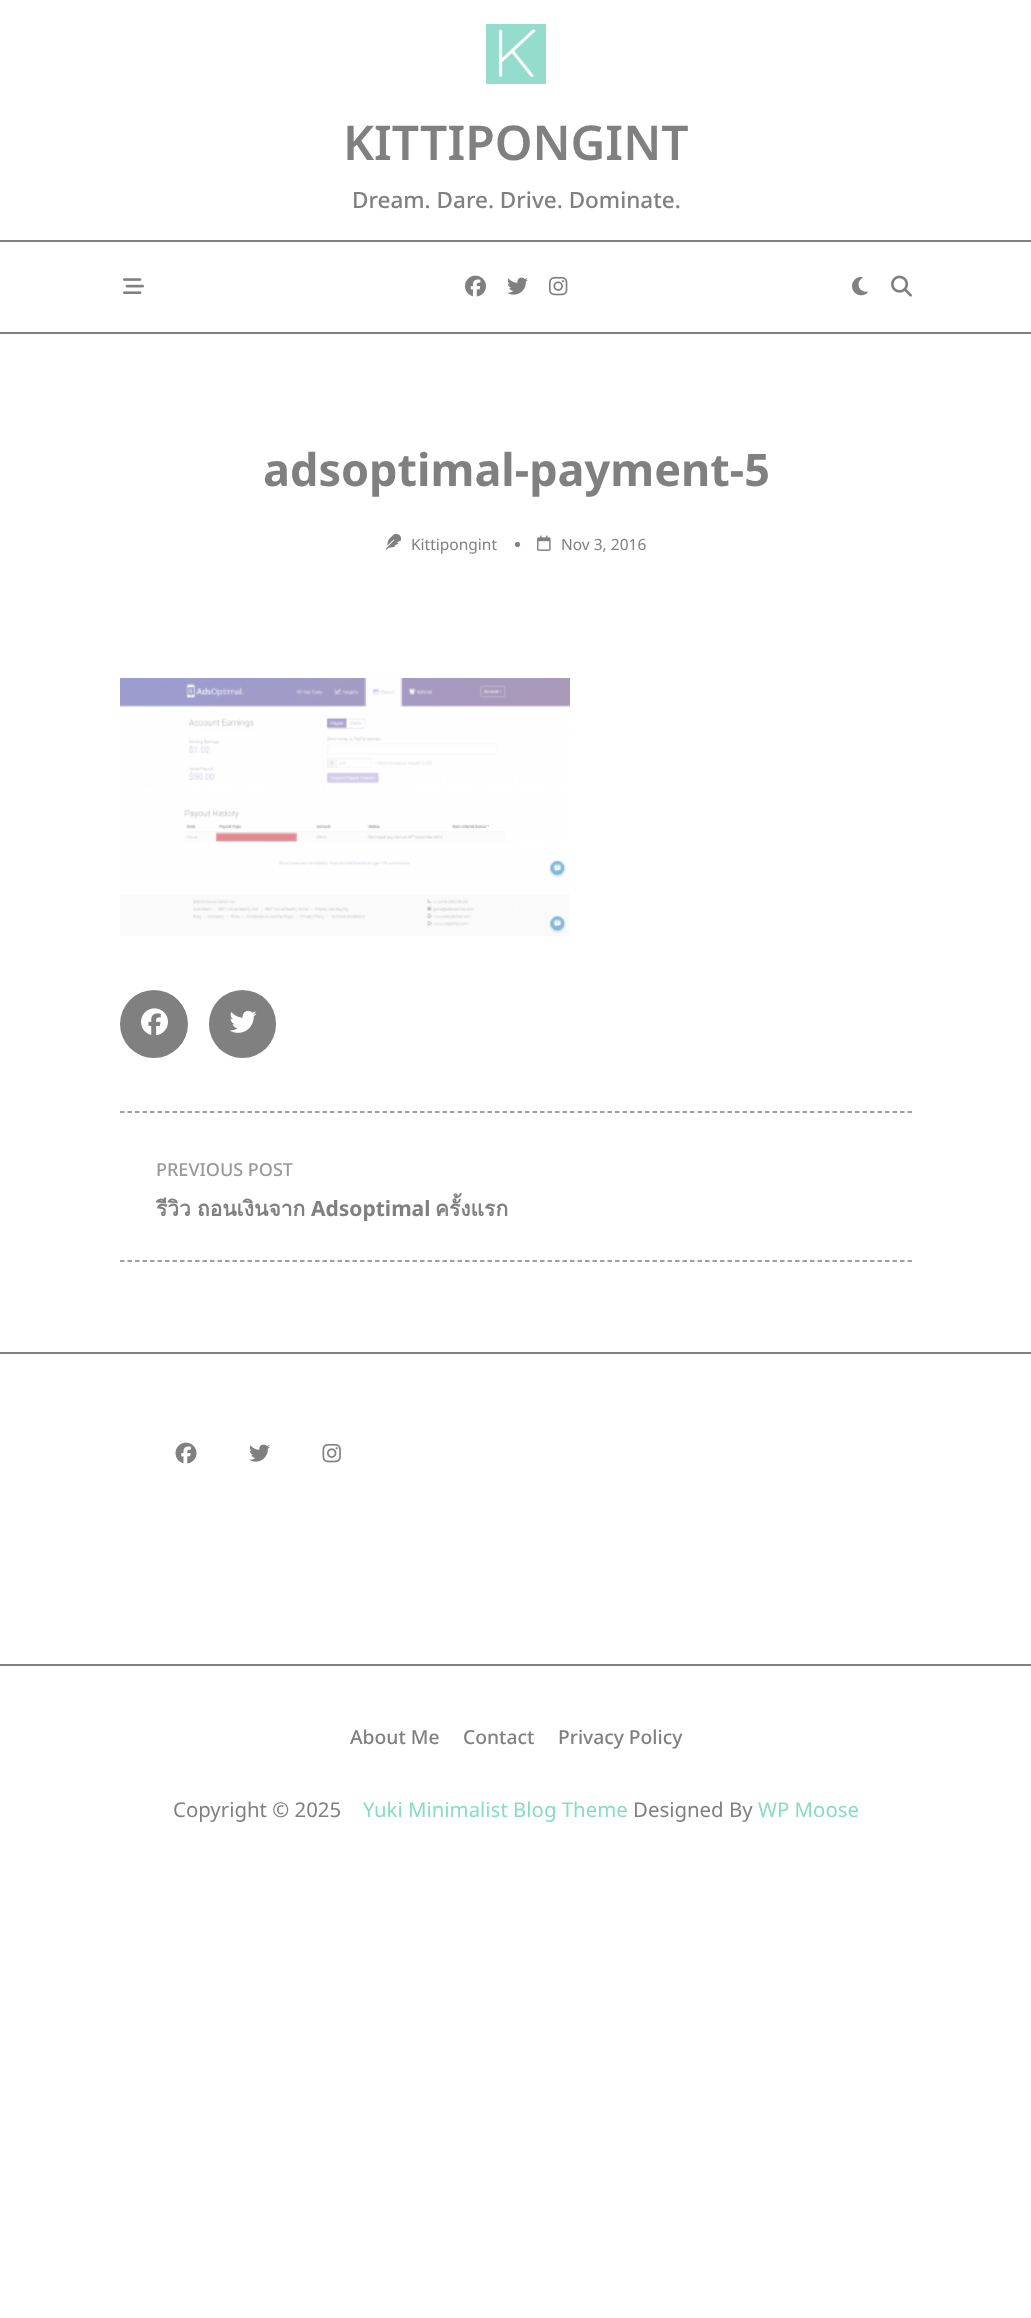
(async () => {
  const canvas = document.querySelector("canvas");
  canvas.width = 1031;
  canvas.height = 2318;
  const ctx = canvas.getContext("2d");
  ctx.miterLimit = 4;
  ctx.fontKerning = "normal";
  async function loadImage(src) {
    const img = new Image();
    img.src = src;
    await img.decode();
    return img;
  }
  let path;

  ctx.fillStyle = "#ffffff";
  ctx.fillRect(0, 0, 1031, 2318);
  ctx.drawImage(await loadImage("img/1.png"), 486, 24, 60, 60);
  ctx.fillStyle = "#808080";
  ctx.fillRect(0, 240, 1031, 2);
  ctx.fillRect(0, 332, 1031, 2);
  ctx.drawImage(await loadImage("img/2.png"), 123, 278, 21, 16);
  ctx.drawImage(await loadImage("img/3.png"), 465, 275, 21, 22);
  ctx.drawImage(await loadImage("img/4.png"), 507, 277, 21, 18);
  ctx.drawImage(await loadImage("img/5.png"), 549, 276, 19, 20);
  ctx.drawImage(await loadImage("img/6.png"), 852, 276, 16, 20);
  ctx.drawImage(await loadImage("img/7.png"), 891, 275, 21, 22);
  ctx.drawImage(await loadImage("img/8.png"), 386, 533, 16, 17);
  ctx.drawImage(await loadImage("img/9.png"), 514, 541, 7, 7);
  ctx.drawImage(await loadImage("img/10.png"), 537, 535, 14, 16);
  ctx.drawImage(await loadImage("img/11.png"), 120, 678, 450, 258);
  ctx.beginPath();
  ctx.arc(154, 1024, 34, 0, Math.PI * 2);
  ctx.fill();
  ctx.drawImage(await loadImage("img/12.png"), 141, 1008, 27, 28);
  ctx.beginPath();
  ctx.roundRect(209, 990, 67, 68, 33.5);
  ctx.fill();
  ctx.drawImage(await loadImage("img/13.png"), 229, 1010, 28, 23);
  path = new Path2D("M120 1112H912");
  ctx.strokeStyle = "#808080";
  ctx.lineWidth = 1.5;
  ctx.setLineDash([4.5, 3]);
  ctx.stroke(path);
  path = new Path2D("M120 1261H912");
  ctx.stroke(path);
  ctx.fillRect(0, 1352, 1031, 2);
  ctx.drawImage(await loadImage("img/14.png"), 175, 1442, 22, 22);
  ctx.drawImage(await loadImage("img/4.png"), 249, 1444, 21, 18);
  ctx.drawImage(await loadImage("img/15.png"), 322, 1443, 19, 20);
  ctx.fillRect(0, 1664, 1031, 2);
  ctx.font = "600 48px Noto Sans";
  ctx.fillText("KITTIPONGINT", 343, 160);
  ctx.font = "500 22.5px Noto Sans";
  ctx.fillText("Dream. Dare. Drive. Dominate.", 352, 208);
  ctx.font = "bold 45px Noto Sans";
  ctx.fillText("adsoptimal-payment-5", 263, 486);
  ctx.font = "15.5px Noto Sans";
  ctx.fillText("Kittipongint", 411, 550);
  ctx.fillText("Nov 3, 2016", 561, 550);
  ctx.font = "500 18px Noto Sans";
  ctx.fillStyle = "#999999";
  ctx.fillText("PREVIOUS POST", 156, 1176);
  ctx.save();
  ctx.beginPath();
  ctx.rect(156, 1193, 353, 31);
  ctx.clip();
  ctx.wordSpacing = "-1px";
  ctx.font = "bold 21px Loma";
  ctx.fillStyle = "#808080";
  ctx.fillText("รีวิว ถอนเงินจาก", 156, 1216);
  ctx.restore();
  ctx.font = "bold 21px Noto Sans";
  ctx.fillStyle = "#808080";
  ctx.fillText("Adsoptimal", 311, 1216);
  ctx.font = "bold 21px Loma";
  ctx.fillText("ครั้งแรก", 435, 1216);
  ctx.font = "500 19.25px Noto Sans";
  for (const [text, x, y] of [
    ["About Me", 350, 1744],
    ["Contact", 463, 1744],
    ["Privacy Policy", 558, 1744],
  ]) {
    ctx.fillText(text, x, y);
  }
  ctx.font = "20.4px Noto Sans";
  ctx.fillText("Copyright © 2025", 173, 1817);
  ctx.fillStyle = "#88dcc0";
  ctx.fillText("Yuki Minimalist Blog Theme", 363, 1817);
  ctx.fillStyle = "#808080";
  ctx.fillText("Designed By", 633, 1817);
  ctx.fillStyle = "#88dcc0";
  ctx.fillText("WP Moose", 758, 1817);
})();
